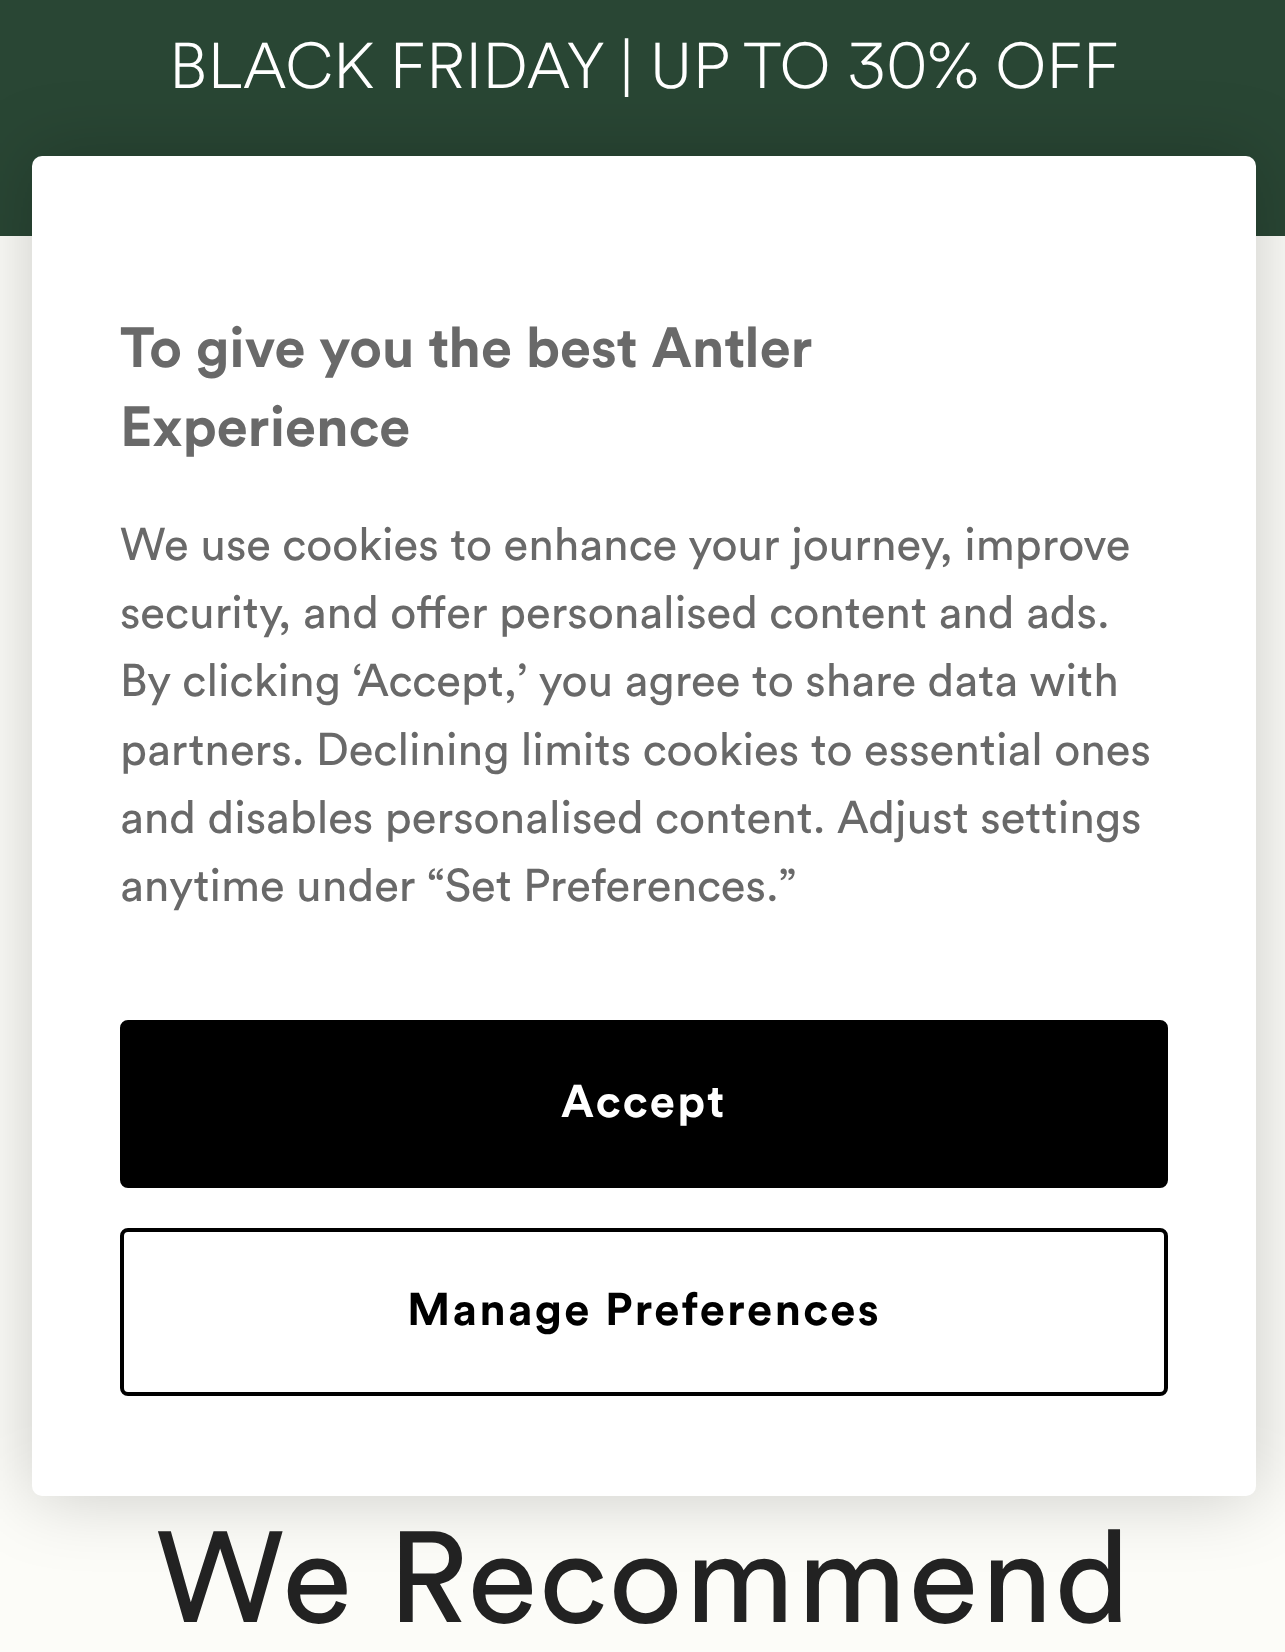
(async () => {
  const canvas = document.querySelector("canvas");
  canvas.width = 1285;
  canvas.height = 1652;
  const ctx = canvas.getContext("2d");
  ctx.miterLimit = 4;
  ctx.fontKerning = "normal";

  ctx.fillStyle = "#fcfcf8";
  ctx.fillRect(0, 0, 1285, 1652);
  ctx.fillStyle = "#294634";
  ctx.fillRect(0, 0, 1285, 236);
  ctx.fillStyle = "rgba(0, 0, 0, 0.2)";
  ctx.filter = "blur(36px)";
  ctx.beginPath();
  ctx.roundRect(32, 156, 1224, 1340, 10);
  ctx.fill();
  ctx.filter = "none";
  ctx.fillStyle = "#ffffff";
  ctx.beginPath();
  ctx.roundRect(32, 156, 1224, 1340, 10);
  ctx.fill();
  ctx.fillStyle = "#000000";
  ctx.beginPath();
  ctx.roundRect(122, 1022, 1044, 164, 6);
  ctx.fill();
  ctx.strokeStyle = "#000000";
  ctx.lineWidth = 4;
  ctx.stroke();
  ctx.beginPath();
  ctx.roundRect(122, 1230, 1044, 164, 6);
  ctx.stroke();
  ctx.font = "300 64px Circular";
  ctx.fillStyle = "#ffffff";
  ctx.fillText("BLACK FRIDAY | UP TO 30% OFF", 169, 88);
  ctx.letterSpacing = "2.4px";
  ctx.font = "128px Circular";
  ctx.fillStyle = "#222222";
  ctx.fillText("We Recommend", 156, 1622);
  ctx.letterSpacing = "0px";
  ctx.font = "bold 56px Circular";
  ctx.fillStyle = "#696969";
  ctx.fillText("To give you the best Antler", 120, 367);
  ctx.fillText("Experience", 120, 446);
  ctx.font = "45.5px Circular";
  for (const [text, x, y] of [
    ["We use cookies to enhance your journey, improve", 120, 560],
    ["security, and offer personalised content and ads.", 120, 628],
    ["By clicking ‘Accept,’ you agree to share data with", 120, 696],
    ["partners. Declining limits cookies to essential ones", 120, 765],
    ["and disables personalised content. Adjust settings", 120, 833],
    ["anytime under “Set Preferences.”", 120, 901],
  ]) {
    ctx.fillText(text, x, y);
  }
  ctx.letterSpacing = "2.25px";
  ctx.font = "bold 45.5px Circular";
  ctx.fillStyle = "#ffffff";
  ctx.fillText("Accept", 561, 1117);
  ctx.fillStyle = "#000000";
  ctx.fillText("Manage Preferences", 407, 1325);
})();
